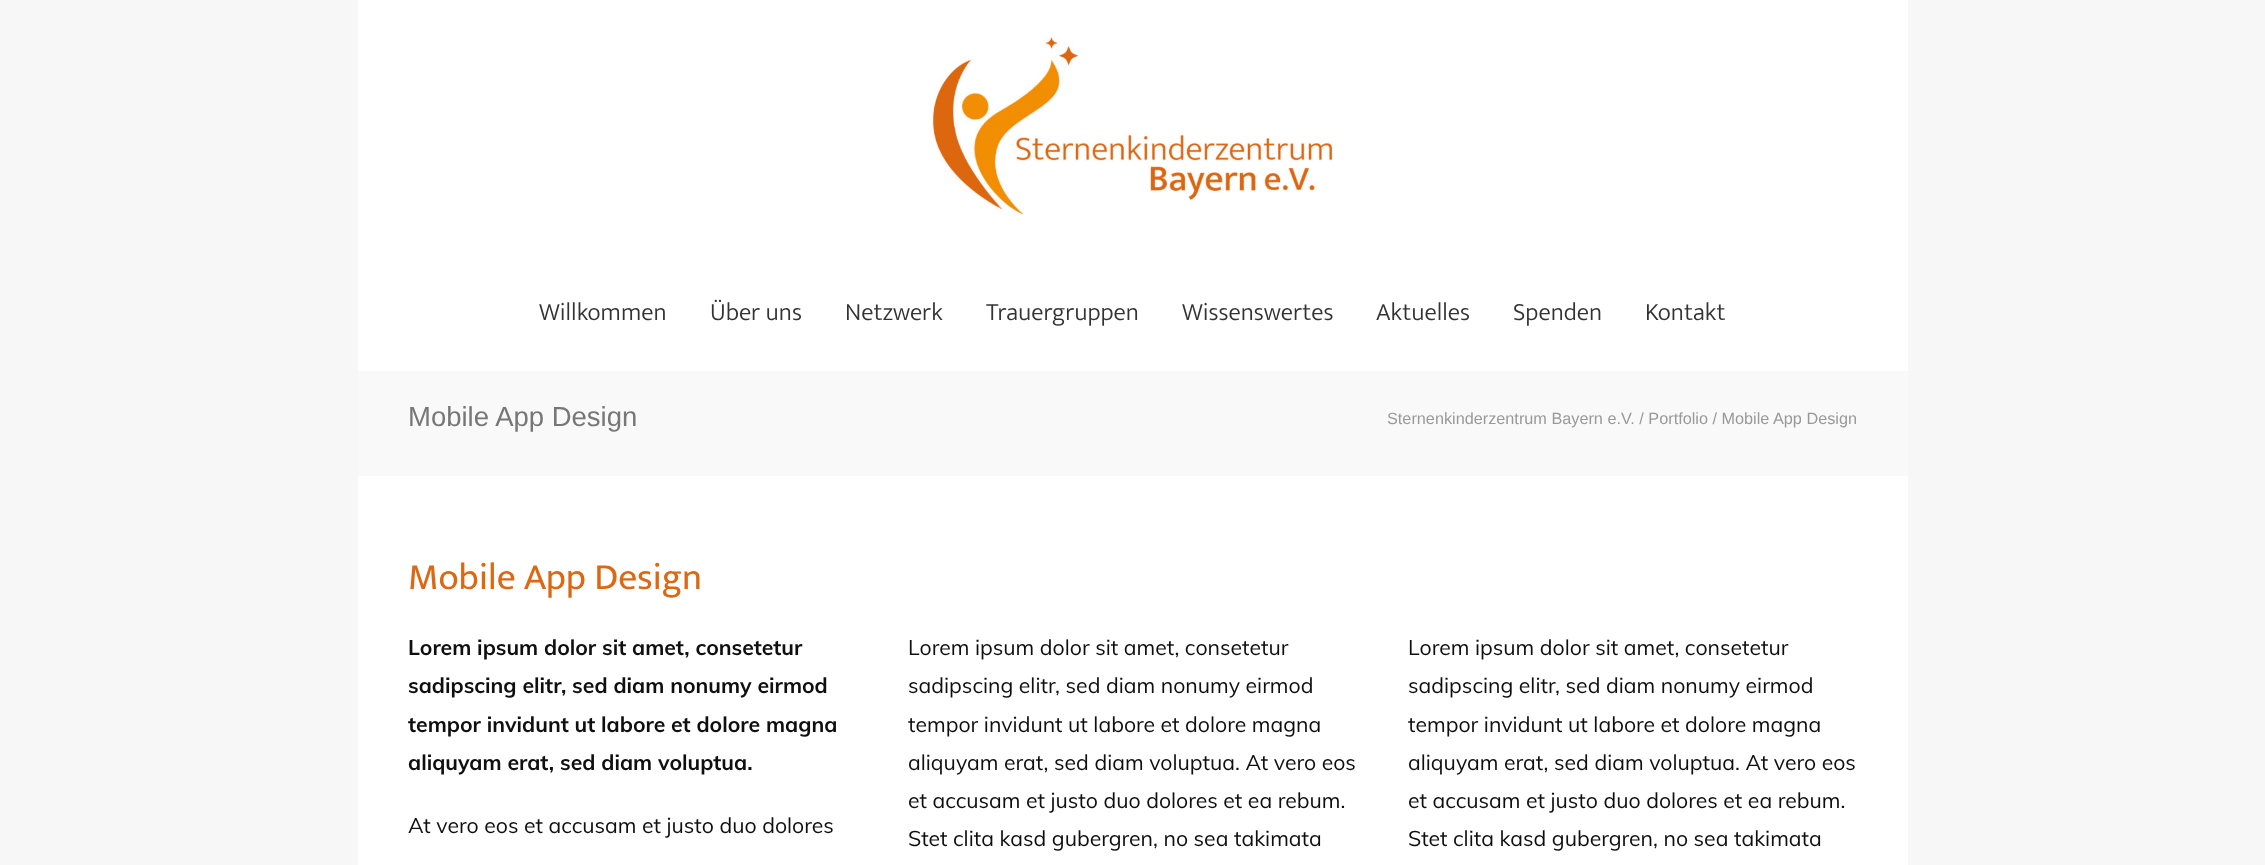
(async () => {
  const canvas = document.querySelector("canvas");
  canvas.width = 2265;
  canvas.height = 865;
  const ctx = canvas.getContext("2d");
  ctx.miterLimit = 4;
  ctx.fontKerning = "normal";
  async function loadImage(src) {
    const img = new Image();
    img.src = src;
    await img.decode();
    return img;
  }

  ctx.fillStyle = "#f7f7f7";
  ctx.fillRect(0, 0, 2265, 865);
  ctx.fillStyle = "#ffffff";
  ctx.fillRect(358, 0, 1550, 865);
  ctx.drawImage(await loadImage("img/1.png"), 930, 37, 403, 178);
  ctx.fillStyle = "#f9f9f9";
  ctx.fillRect(358, 371, 1550, 105);
  ctx.font = "300 25px Mukta";
  ctx.fillStyle = "#333333";
  for (const [text, x, y] of [
    ["Willkommen", 539, 320],
    ["Über uns", 710, 320],
    ["Netzwerk", 845, 320],
    ["Trauergruppen", 986, 320],
    ["Wissenswertes", 1182, 320],
    ["Aktuelles", 1376, 320],
    ["Spenden", 1513, 320],
    ["Kontakt", 1645, 320],
  ]) {
    ctx.fillText(text, x, y);
  }
  ctx.font = "27.5px Liberation Sans";
  ctx.fillStyle = "#777777";
  ctx.fillText("Mobile App Design", 408, 426);
  ctx.font = "16.25px Liberation Sans";
  ctx.fillStyle = "#999999";
  ctx.fillText("Sternenkinderzentrum Bayern e.V. / Portfolio / Mobile App Design", 1387, 424);
  ctx.font = "37.5px Mukta";
  ctx.fillStyle = "#dc6813";
  ctx.fillText("Mobile App Design", 408, 589);
  ctx.font = "bold 21.25px Muli";
  ctx.fillStyle = "#0f0f0f";
  for (const [text, x, y] of [
    ["Lorem ipsum dolor sit amet, consetetur", 408, 655],
    ["sadipscing elitr, sed diam nonumy eirmod", 408, 693],
    ["tempor invidunt ut labore et dolore magna", 408, 732],
    ["aliquyam erat, sed diam voluptua.", 408, 770],
  ]) {
    ctx.fillText(text, x, y);
  }
  ctx.font = "21.25px Muli";
  for (const [text, x, y] of [
    ["At vero eos et accusam et justo duo dolores", 408, 833],
    ["Lorem ipsum dolor sit amet, consetetur", 908, 655],
    ["sadipscing elitr, sed diam nonumy eirmod", 908, 693],
    ["tempor invidunt ut labore et dolore magna", 908, 732],
    ["aliquyam erat, sed diam voluptua. At vero eos", 908, 770],
    ["et accusam et justo duo dolores et ea rebum.", 908, 808],
    ["Stet clita kasd gubergren, no sea takimata", 908, 846],
    ["Lorem ipsum dolor sit amet, consetetur", 1408, 655],
    ["sadipscing elitr, sed diam nonumy eirmod", 1408, 693],
    ["tempor invidunt ut labore et dolore magna", 1408, 732],
    ["aliquyam erat, sed diam voluptua. At vero eos", 1408, 770],
    ["et accusam et justo duo dolores et ea rebum.", 1408, 808],
    ["Stet clita kasd gubergren, no sea takimata", 1408, 846],
  ]) {
    ctx.fillText(text, x, y);
  }
})();
